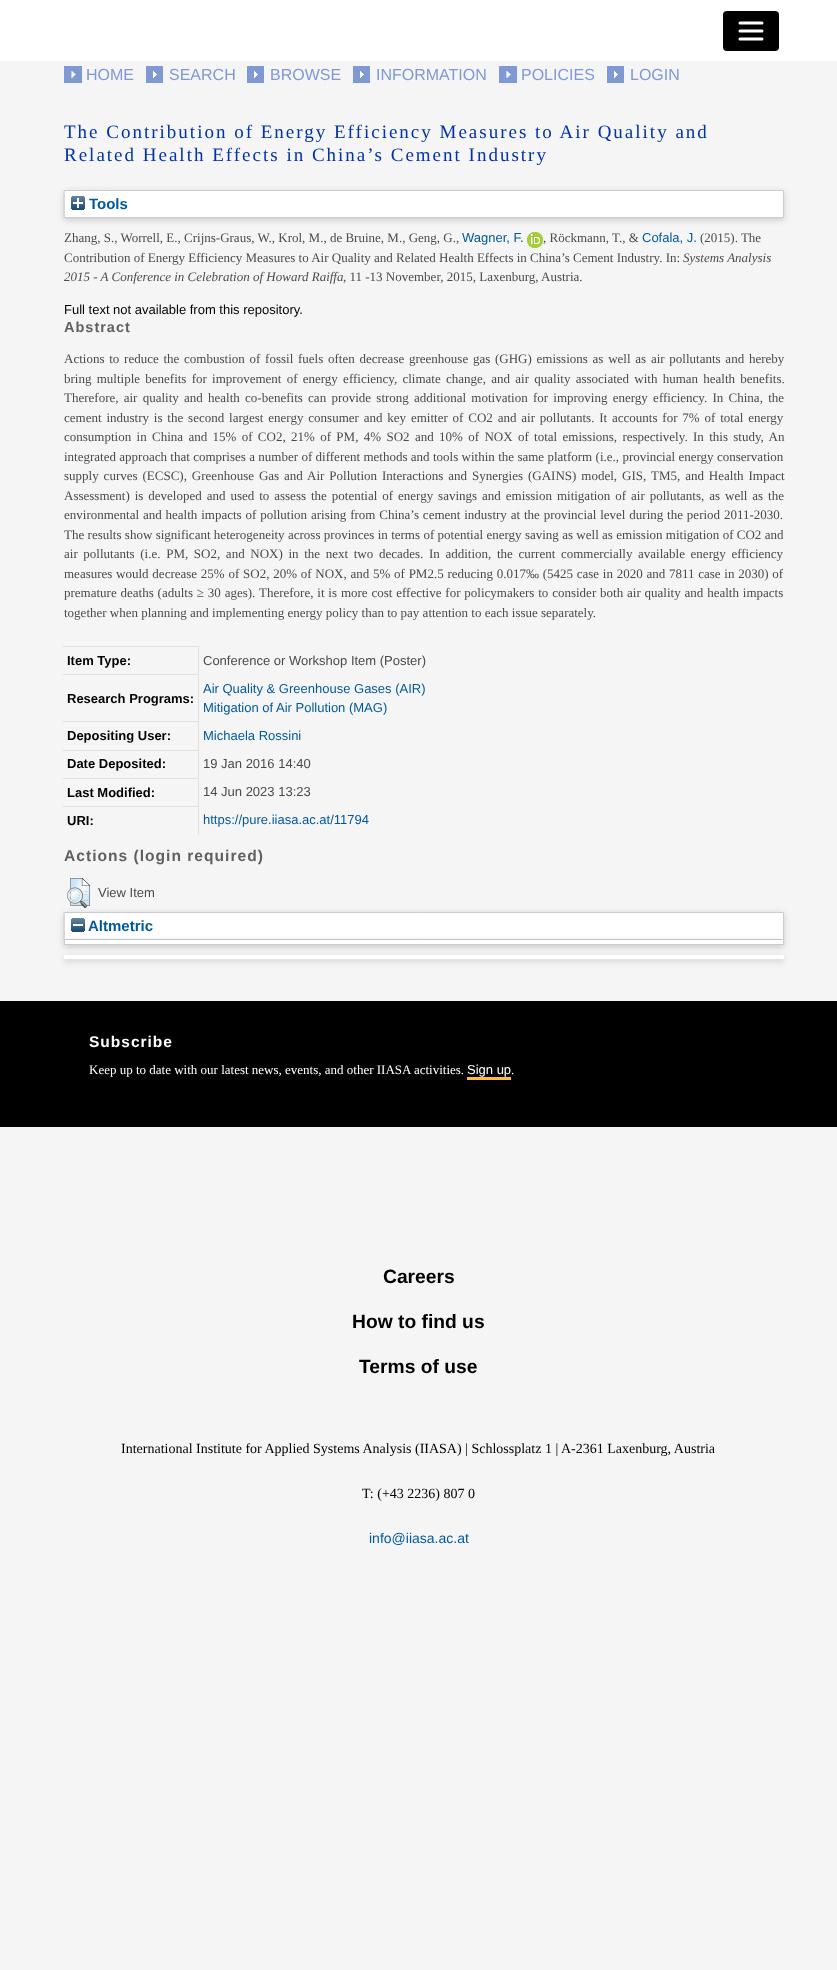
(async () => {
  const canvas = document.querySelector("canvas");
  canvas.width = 837;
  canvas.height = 1970;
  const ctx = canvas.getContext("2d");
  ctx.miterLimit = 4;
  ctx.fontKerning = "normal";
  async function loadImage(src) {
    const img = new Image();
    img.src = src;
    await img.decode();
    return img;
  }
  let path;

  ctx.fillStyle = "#f5f5f5";
  ctx.fillRect(0, 0, 837, 1970);
  ctx.fillStyle = "#ffffff";
  ctx.fillRect(0, 0, 837, 61);
  ctx.fillStyle = "#000000";
  ctx.beginPath();
  ctx.roundRect(723, 11, 56, 40, 4);
  ctx.fill();
  path = new Path2D("M740 23H762M740 31H762M740 39H762");
  ctx.strokeStyle = "#ffffff";
  ctx.lineWidth = 3;
  ctx.lineCap = "round";
  ctx.stroke(path);
  ctx.drawImage(await loadImage("img/1.png"), 64, 66, 18, 17);
  ctx.drawImage(await loadImage("img/2.png"), 146, 66, 17, 17);
  ctx.drawImage(await loadImage("img/2.png"), 247, 66, 17, 17);
  ctx.drawImage(await loadImage("img/2.png"), 353, 66, 17, 17);
  ctx.drawImage(await loadImage("img/1.png"), 499, 66, 18, 17);
  ctx.drawImage(await loadImage("img/2.png"), 607, 66, 17, 17);
  ctx.fillStyle = "rgba(100, 100, 100, 0.3)";
  ctx.filter = "blur(3px)";
  ctx.beginPath();
  ctx.rect(64, 192, 720, 28);
  ctx.fill();
  ctx.filter = "none";
  ctx.fillStyle = "#ffffff";
  ctx.beginPath();
  ctx.rect(64.5, 190.5, 719, 27);
  ctx.fill();
  ctx.strokeStyle = "#cccccc";
  ctx.lineWidth = 1;
  ctx.stroke();
  ctx.drawImage(await loadImage("img/3.png"), 71, 196, 14, 14);
  ctx.drawImage(await loadImage("img/4.png"), 527, 232, 16, 16);
  for (const [x, y, w, h, color] of [
    [63, 646, 136, 1, "#e0e1e1"],
    [63, 674, 136, 1, "#e0e1e1"],
    [63, 721, 136, 1, "#e0e1e1"],
    [63, 750, 136, 1, "#e0e1e1"],
    [63, 778, 136, 1, "#e0e1e1"],
    [63, 806, 136, 1, "#e0e1e1"],
    [198, 806, 1, 29, "#e0e1e1"],
    [198, 778, 1, 29, "#e0e1e1"],
    [198, 750, 1, 29, "#e0e1e1"],
    [198, 721, 1, 30, "#e0e1e1"],
    [198, 674, 1, 48, "#e0e1e1"],
    [198, 646, 1, 29, "#e0e1e1"],
  ]) {
    ctx.fillStyle = color;
    ctx.fillRect(x, y, w, h);
  }
  ctx.fillStyle = "rgba(100, 100, 100, 0.3)";
  ctx.filter = "blur(3px)";
  ctx.beginPath();
  ctx.rect(64, 914, 720, 28);
  ctx.fill();
  ctx.filter = "none";
  ctx.drawImage(await loadImage("img/5.png"), 67, 878, 23, 30);
  ctx.fillStyle = "#ffffff";
  ctx.beginPath();
  ctx.rect(64.5, 912.5, 719, 27);
  ctx.fill();
  ctx.stroke();
  ctx.drawImage(await loadImage("img/6.png"), 71, 918, 14, 14);
  ctx.fillStyle = "rgba(100, 100, 100, 0.3)";
  ctx.filter = "blur(3px)";
  ctx.beginPath();
  ctx.rect(64, 942, 720, 5);
  ctx.fill();
  ctx.filter = "none";
  for (const [x, y, w, h, color] of [
    [64, 940, 720, 4, "#ffffff"],
    [783, 940, 1, 5, "#cccccc"],
    [64, 944, 720, 1, "#cccccc"],
    [64, 940, 1, 5, "#cccccc"],
  ]) {
    ctx.fillStyle = color;
    ctx.fillRect(x, y, w, h);
  }
  ctx.fillStyle = "rgba(100, 100, 100, 0.3)";
  ctx.filter = "blur(3px)";
  ctx.beginPath();
  ctx.rect(64, 957, 720, 4);
  ctx.fill();
  ctx.filter = "none";
  for (const [x, y, w, h, color] of [
    [64, 955, 720, 4, "#ffffff"],
    [0, 1001, 837, 126, "#000000"],
    [467, 1077, 44, 3, "#fdbb40"],
  ]) {
    ctx.fillStyle = color;
    ctx.fillRect(x, y, w, h);
  }
  ctx.font = "16px Liberation Sans";
  ctx.fillStyle = "#7f99d4";
  for (const [text, x, y] of [
    ["HOME", 86, 80],
    ["SEARCH", 169, 80],
    ["BROWSE", 270, 80],
    ["INFORMATION", 376, 80],
    ["POLICIES", 521, 80],
    ["LOGIN", 630, 80],
  ]) {
    ctx.fillText(text, x, y);
  }
  ctx.letterSpacing = "2px";
  ctx.font = "19px Liberation Serif";
  ctx.fillStyle = "#0033aa";
  ctx.fillText("The Contribution of Energy Efficiency Measures to Air Quality and", 64, 138);
  ctx.fillText("Related Health Effects in China’s Cement Industry", 64, 161);
  ctx.letterSpacing = "0px";
  ctx.font = "bold 15px Liberation Sans";
  ctx.fillStyle = "#00599d";
  ctx.fillText("Tools", 89, 209);
  ctx.font = "13px Liberation Serif";
  ctx.fillStyle = "#4b4a4d";
  ctx.fillText("Zhang, S., Worrell, E., Crijns-Graus, W., Krol, M., de Bruine, M., Geng, G.,", 64, 242);
  ctx.font = "13px Liberation Sans";
  ctx.fillStyle = "#00599d";
  ctx.fillText("Wagner, F.", 462, 242);
  ctx.font = "13px Liberation Serif";
  ctx.fillStyle = "#4b4a4d";
  ctx.fillText(", Röckmann, T., &", 543, 242);
  ctx.font = "13px Liberation Sans";
  ctx.fillStyle = "#00599d";
  ctx.fillText("Cofala, J.", 642, 242);
  ctx.font = "13px Liberation Serif";
  ctx.fillStyle = "#4b4a4d";
  ctx.fillText("(2015). The", 700, 242);
  ctx.fillText("Contribution of Energy Efficiency Measures to Air Quality and Related Health Effects in China’s Cement Industry. In:", 64, 262);
  ctx.font = "italic 13px Liberation Serif";
  ctx.fillText("Systems Analysis", 683, 262);
  ctx.fillText("2015 - A Conference in Celebration of Howard Raiffa", 64, 281);
  ctx.font = "13px Liberation Serif";
  ctx.fillText(", 11 -13 November, 2015, Laxenburg, Austria.", 343, 281);
  ctx.font = "13px Liberation Sans";
  ctx.fillStyle = "#000000";
  ctx.fillText("Full text not available from this repository.", 64, 314);
  ctx.letterSpacing = "1px";
  ctx.font = "bold 14.5px Liberation Sans";
  ctx.fillStyle = "#606060";
  ctx.fillText("Abstract", 64, 332);
  ctx.letterSpacing = "0px";
  ctx.wordSpacing = "1.5px";
  ctx.font = "13px Liberation Serif";
  ctx.fillStyle = "#4b4a4d";
  ctx.fillText("Actions to reduce the combustion of fossil fuels often decrease greenhouse gas (GHG) emissions as well as air pollutants and hereby", 64, 363);
  ctx.wordSpacing = "2px";
  ctx.fillText("bring multiple benefits for improvement of energy efficiency, climate change, and air quality associated with human health benefits.", 64, 383);
  ctx.fillText("Therefore, air quality and health co-benefits can provide strong additional motivation for improving energy efficiency. In China, the", 64, 402);
  ctx.wordSpacing = "1.6px";
  ctx.fillText("cement industry is the second largest energy consumer and key emitter of CO2 and air pollutants. It accounts for 7% of total energy", 64, 422);
  ctx.wordSpacing = "2.1px";
  ctx.fillText("consumption in China and 15% of CO2, 21% of PM, 4% SO2 and 10% of NOX of total emissions, respectively. In this study, An", 64, 441);
  ctx.wordSpacing = "0.1px";
  ctx.fillText("integrated approach that comprises a number of different methods and tools within the same platform (i.e., provincial energy conservation", 64, 461);
  ctx.wordSpacing = "1.7px";
  ctx.fillText("supply curves (ECSC), Greenhouse Gas and Air Pollution Interactions and Synergies (GAINS) model, GIS, TM5, and Health Impact", 64, 480);
  ctx.fillText("Assessment) is developed and used to assess the potential of energy savings and emission mitigation of air pollutants, as well as the", 64, 500);
  ctx.wordSpacing = "0.6px";
  ctx.fillText("environmental and health impacts of pollution arising from China’s cement industry at the provincial level during the period 2011-2030.", 64, 519);
  ctx.wordSpacing = "0.1px";
  ctx.fillText("The results show significant heterogeneity across provinces in terms of potential energy saving as well as emission mitigation of CO2 and", 64, 539);
  ctx.wordSpacing = "2.4px";
  ctx.fillText("air pollutants (i.e. PM, SO2, and NOX) in the next two decades. In addition, the current commercially available energy efficiency", 64, 558);
  ctx.wordSpacing = "0.5px";
  ctx.fillText("measures would decrease 25% of SO2, 20% of NOX, and 5% of PM2.5 reducing 0.017‰ (5425 case in 2020 and 7811 case in 2030) of", 64, 578);
  ctx.wordSpacing = "0.6px";
  ctx.fillText("premature deaths (adults ≥ 30 ages). Therefore, it is more cost effective for policymakers to consider both air quality and health impacts", 64, 597);
  ctx.wordSpacing = "0px";
  ctx.fillText("together when planning and implementing energy policy than to pay attention to each issue separately.", 64, 617);
  ctx.font = "bold 13px Liberation Sans";
  ctx.fillStyle = "#000000";
  ctx.fillText("Item Type:", 67, 665);
  ctx.font = "13px Liberation Sans";
  ctx.fillStyle = "#4b4a4d";
  ctx.fillText("Conference or Workshop Item (Poster)", 203, 665);
  ctx.font = "bold 13px Liberation Sans";
  ctx.fillStyle = "#000000";
  ctx.fillText("Research Programs:", 67, 703);
  ctx.font = "13px Liberation Sans";
  ctx.fillStyle = "#00599d";
  ctx.fillText("Air Quality & Greenhouse Gases (AIR)", 203, 693);
  ctx.fillText("Mitigation of Air Pollution (MAG)", 203, 712);
  ctx.font = "bold 13px Liberation Sans";
  ctx.fillStyle = "#000000";
  ctx.fillText("Depositing User:", 67, 740);
  ctx.font = "13px Liberation Sans";
  ctx.fillStyle = "#00599d";
  ctx.fillText("Michaela Rossini", 203, 740);
  ctx.font = "bold 13px Liberation Sans";
  ctx.fillStyle = "#000000";
  ctx.fillText("Date Deposited:", 67, 768);
  ctx.font = "13px Liberation Sans";
  ctx.fillStyle = "#4b4a4d";
  ctx.fillText("19 Jan 2016 14:40", 203, 768);
  ctx.font = "bold 13px Liberation Sans";
  ctx.fillStyle = "#000000";
  ctx.fillText("Last Modified:", 67, 797);
  ctx.font = "13px Liberation Sans";
  ctx.fillStyle = "#4b4a4d";
  ctx.fillText("14 Jun 2023 13:23", 203, 796);
  ctx.font = "bold 13px Liberation Sans";
  ctx.fillStyle = "#000000";
  ctx.fillText("URI:", 67, 825);
  ctx.font = "13px Liberation Sans";
  ctx.fillStyle = "#00599d";
  ctx.fillText("https://pure.iiasa.ac.at/11794", 203, 824);
  ctx.letterSpacing = "1px";
  ctx.font = "bold 15.6px Liberation Sans";
  ctx.fillStyle = "#606060";
  ctx.fillText("Actions (login required)", 64, 861);
  ctx.letterSpacing = "0px";
  ctx.font = "13px Liberation Sans";
  ctx.fillStyle = "#4b4a4d";
  ctx.fillText("View Item", 98, 897);
  ctx.font = "bold 15px Liberation Sans";
  ctx.fillStyle = "#00599d";
  ctx.fillText("Altmetric", 88, 931);
  ctx.letterSpacing = "1px";
  ctx.font = "bold 15.5px Liberation Sans";
  ctx.fillStyle = "#ffffff";
  ctx.fillText("Subscribe", 89, 1047);
  ctx.letterSpacing = "0px";
  ctx.font = "13px Liberation Serif";
  ctx.fillText("Keep up to date with our latest news, events, and other IIASA activities.", 89, 1074);
  ctx.font = "13px Liberation Sans";
  ctx.fillText("Sign up", 467, 1074);
  ctx.font = "13px Liberation Serif";
  ctx.fillText(".", 511, 1074);
  ctx.font = "bold 19.25px Liberation Sans";
  ctx.fillStyle = "#000000";
  for (const [text, x, y] of [
    ["Careers", 383, 1283],
    ["How to find us", 352, 1328],
    ["Terms of use", 359, 1373],
  ]) {
    ctx.fillText(text, x, y);
  }
  ctx.font = "14px Liberation Serif";
  ctx.fillText("International Institute for Applied Systems Analysis (IIASA) | Schlossplatz 1 | A-2361 Laxenburg, Austria", 121, 1453);
  ctx.fillText("T: (+43 2236) 807 0", 362, 1498);
  ctx.font = "14px Liberation Sans";
  ctx.fillStyle = "#00599d";
  ctx.fillText("info@iiasa.ac.at", 369, 1543);
})();
